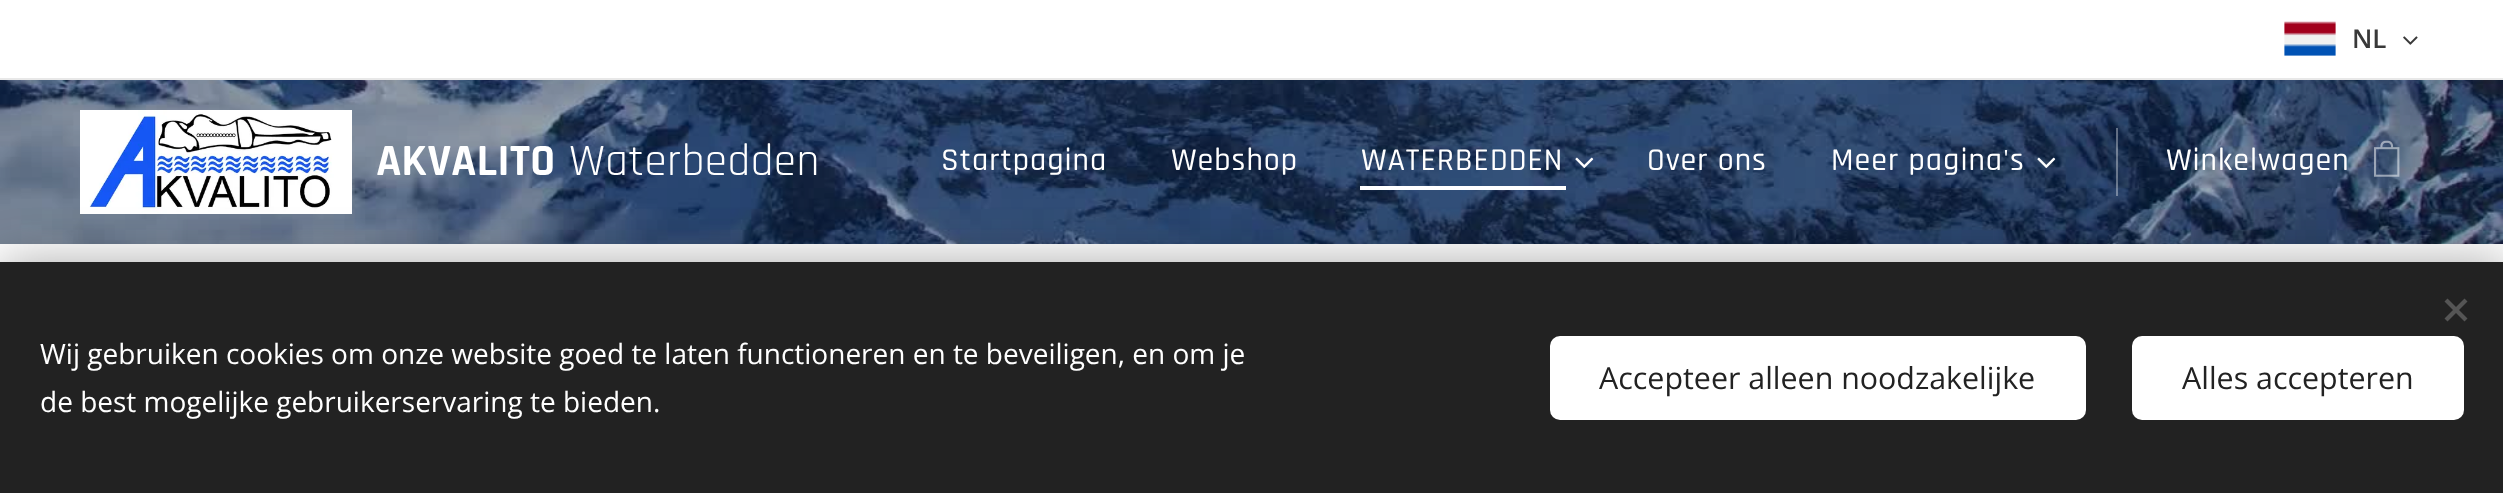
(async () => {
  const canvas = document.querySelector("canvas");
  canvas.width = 2503;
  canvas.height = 493;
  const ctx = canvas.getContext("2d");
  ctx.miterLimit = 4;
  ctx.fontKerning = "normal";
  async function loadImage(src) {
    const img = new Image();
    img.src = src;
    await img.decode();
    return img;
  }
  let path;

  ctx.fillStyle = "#ffffff";
  ctx.fillRect(0, 0, 2503, 493);
  ctx.drawImage(await loadImage("img/1.png"), 2284, 21, 52, 35);
  ctx.drawImage(await loadImage("img/2.png"), 2403, 36, 15, 9);
  ctx.fillStyle = "#e8e8e8";
  ctx.fillRect(0, 78, 2503, 2);
  ctx.drawImage(await loadImage("img/3.png"), 0, 80, 2503, 164);
  ctx.drawImage(await loadImage("img/4.png"), 80, 110, 272, 104);
  ctx.fillStyle = "#ffffff";
  ctx.fillRect(1360, 186, 206, 4);
  ctx.drawImage(await loadImage("img/5.png"), 1575, 157, 19, 11);
  ctx.drawImage(await loadImage("img/6.png"), 2037, 157, 19, 11);
  ctx.fillStyle = "rgba(255, 255, 255, 0.35)";
  ctx.fillRect(2116, 128, 2, 68);
  ctx.drawImage(await loadImage("img/7.png"), 2374, 140, 26, 37);
  ctx.fillStyle = "rgba(0, 0, 0, 0.33)";
  ctx.filter = "blur(25px)";
  ctx.beginPath();
  ctx.rect(0, 262, 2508, 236);
  ctx.fill();
  ctx.filter = "none";
  ctx.fillStyle = "#222222";
  ctx.fillRect(0, 262, 2503, 231);
  ctx.fillStyle = "#555555";
  path = new Path2D("M2444.5 318.5L2464.5 298.5L2467.5 301.5L2447.5 321.5Z");
  ctx.fill(path);
  path = new Path2D("M2447.5 298.5L2467.5 318.5L2464.5 321.5L2444.5 301.5Z");
  ctx.fill(path);
  ctx.fillStyle = "#ffffff";
  ctx.beginPath();
  ctx.roundRect(1550, 336, 536, 84, 10);
  ctx.fill();
  ctx.beginPath();
  ctx.roundRect(2132, 336, 332, 84, 10);
  ctx.fill();
  ctx.font = "600 26px Open Sans";
  ctx.fillStyle = "#393939";
  ctx.fillText("NL", 2352, 48);
  ctx.letterSpacing = "0.5px";
  ctx.font = "bold 45px Rajdhani";
  ctx.fillStyle = "#ffffff";
  ctx.fillText("AKVALITO", 376, 175);
  ctx.font = "45px Rajdhani";
  ctx.fillText("Waterbedden", 569, 175);
  ctx.letterSpacing = "1px";
  ctx.font = "500 32px Rajdhani";
  for (const [text, x, y] of [
    ["Startpagina", 941, 170],
    ["Webshop", 1171, 170],
    ["WATERBEDDEN", 1361, 170],
    ["Over ons", 1647, 170],
    ["Meer pagina's", 1831, 170],
    ["Winkelwagen", 2166, 170],
  ]) {
    ctx.fillText(text, x, y);
  }
  ctx.letterSpacing = "0px";
  ctx.font = "28px Open Sans";
  ctx.fillText("Wij gebruiken cookies om onze website goed te laten functioneren en te beveiligen, en om je", 40, 364);
  ctx.fillText("de best mogelijke gebruikerservaring te bieden.", 40, 412);
  ctx.font = "30.4px Open Sans";
  ctx.fillStyle = "#222222";
  ctx.fillText("Accepteer alleen noodzakelijke", 1599, 389);
  ctx.fillText("Alles accepteren", 2182, 389);
})();
